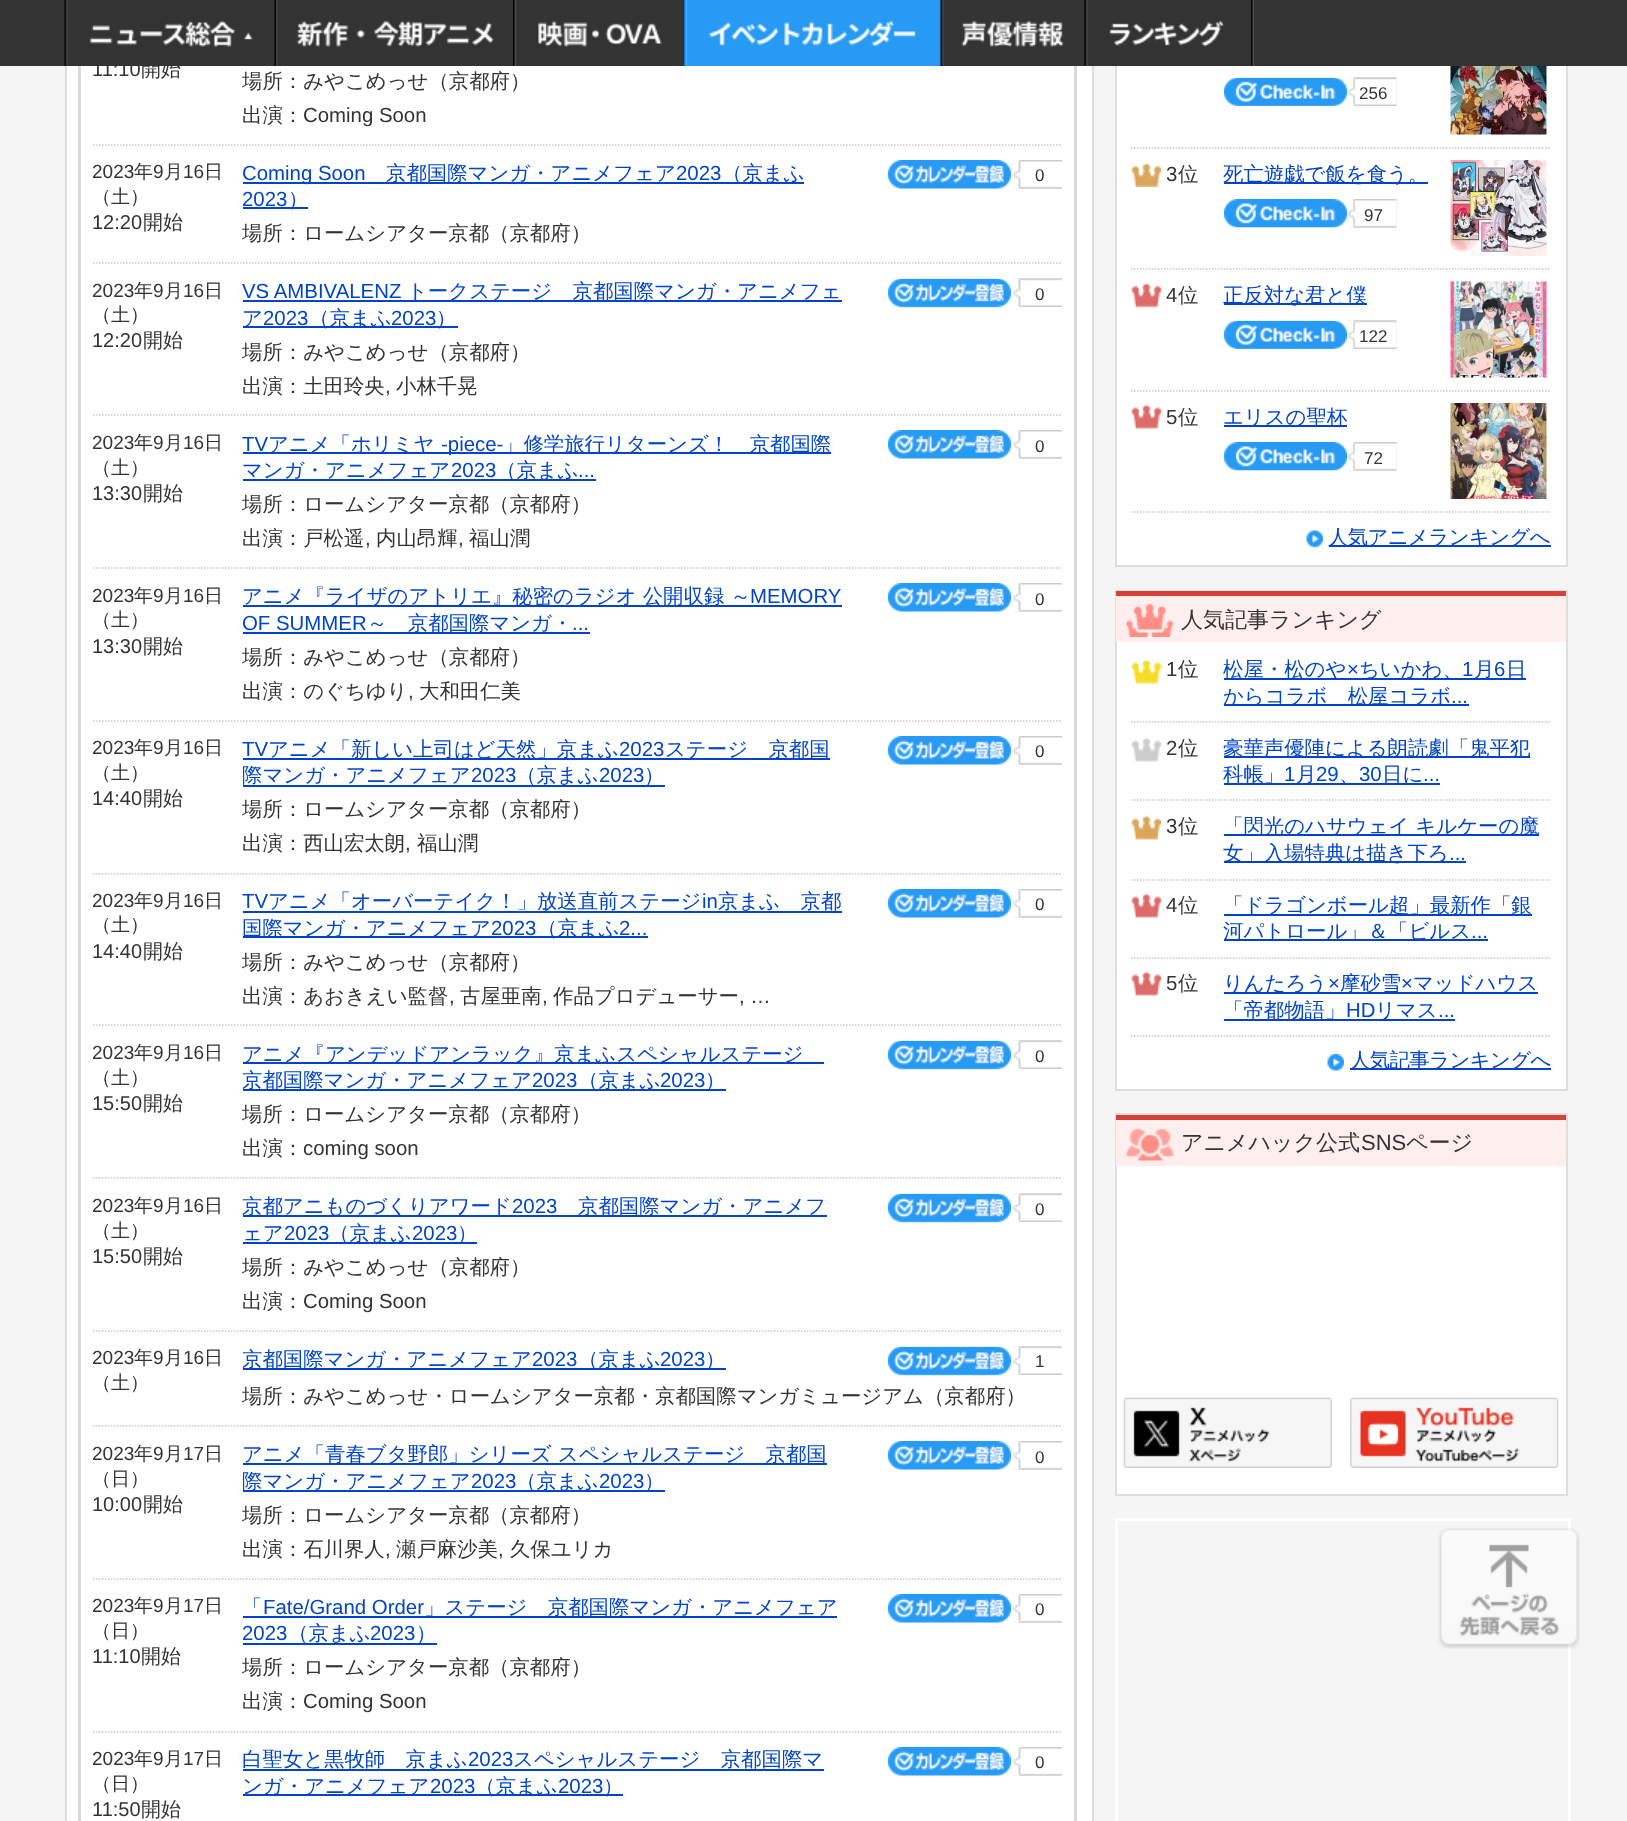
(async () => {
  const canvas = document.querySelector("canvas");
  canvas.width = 1627;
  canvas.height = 1821;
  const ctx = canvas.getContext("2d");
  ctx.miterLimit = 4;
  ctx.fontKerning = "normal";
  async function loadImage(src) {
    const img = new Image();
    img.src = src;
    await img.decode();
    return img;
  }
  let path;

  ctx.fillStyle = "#f5f5f5";
  ctx.fillRect(0, 0, 1627, 1821);
  ctx.fillStyle = "#ffffff";
  ctx.fillRect(67, 66, 1025, 1755);
  ctx.strokeStyle = "#dedede";
  ctx.lineWidth = 2;
  ctx.strokeRect(66, -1, 1027, 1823);
  ctx.strokeStyle = "#d9d9d9";
  ctx.lineWidth = 3;
  ctx.strokeRect(79.5, -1.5, 996, 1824);
  ctx.fillRect(1117, 66, 449, 499);
  ctx.strokeStyle = "#dedede";
  ctx.lineWidth = 2;
  ctx.strokeRect(1116, -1, 451, 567);
  ctx.fillStyle = "#333333";
  ctx.fillRect(0, 0, 1627, 66);
  ctx.drawImage(await loadImage("img/2.png"), 274, 0, 220, 66);
  ctx.drawImage(await loadImage("img/3.png"), 513, 0, 168, 66);
  ctx.drawImage(await loadImage("img/4.png"), 684, 0, 257, 66);
  ctx.drawImage(await loadImage("img/5.png"), 940, 0, 124, 66);
  ctx.drawImage(await loadImage("img/6.png"), 1084, 0, 170, 66);
  path = new Path2D("M93 145H1062");
  ctx.strokeStyle = "#c7c7c7";
  ctx.lineWidth = 1.5;
  ctx.setLineDash([1.5, 1.5]);
  ctx.stroke(path);
  path = new Path2D("M93 263H1062");
  ctx.stroke(path);
  ctx.fillStyle = "#0044cc";
  ctx.fillRect(243, 182, 561, 2);
  ctx.fillRect(243, 207, 65, 2);
  ctx.drawImage(await loadImage("img/7.png"), 888, 160, 123, 29);
  ctx.drawImage(await loadImage("img/8.png"), 1014, 188, 48, 1);
  ctx.drawImage(await loadImage("img/9.png"), 1012, 160, 50, 29);
  path = new Path2D("M93 415H1062");
  ctx.stroke(path);
  ctx.fillRect(243, 300, 599, 2);
  ctx.fillRect(243, 326, 215, 2);
  ctx.drawImage(await loadImage("img/10.png"), 888, 278, 123, 30);
  ctx.drawImage(await loadImage("img/8.png"), 1014, 278, 48, 1);
  ctx.drawImage(await loadImage("img/11.png"), 1012, 278, 50, 29);
  path = new Path2D("M93 568H1062");
  ctx.stroke(path);
  ctx.fillRect(243, 452, 588, 2);
  ctx.fillRect(243, 479, 353, 2);
  ctx.drawImage(await loadImage("img/7.png"), 888, 430, 123, 29);
  ctx.drawImage(await loadImage("img/8.png"), 1014, 458, 48, 1);
  ctx.drawImage(await loadImage("img/9.png"), 1012, 430, 50, 29);
  path = new Path2D("M93 721H1062");
  ctx.stroke(path);
  ctx.fillRect(243, 605, 599, 2);
  ctx.fillRect(243, 632, 347, 2);
  ctx.drawImage(await loadImage("img/7.png"), 888, 583, 123, 29);
  ctx.drawImage(await loadImage("img/8.png"), 1014, 611, 48, 1);
  ctx.drawImage(await loadImage("img/9.png"), 1012, 583, 50, 29);
  path = new Path2D("M93 874H1062");
  ctx.stroke(path);
  ctx.fillRect(243, 758, 587, 2);
  ctx.fillRect(243, 785, 422, 2);
  ctx.drawImage(await loadImage("img/7.png"), 888, 736, 123, 29);
  ctx.drawImage(await loadImage("img/8.png"), 1014, 764, 48, 1);
  ctx.drawImage(await loadImage("img/9.png"), 1012, 736, 50, 29);
  path = new Path2D("M93 1025H1062");
  ctx.stroke(path);
  ctx.fillRect(243, 911, 599, 2);
  ctx.fillRect(243, 936, 405, 2);
  ctx.drawImage(await loadImage("img/7.png"), 888, 889, 123, 29);
  ctx.drawImage(await loadImage("img/8.png"), 1014, 917, 48, 1);
  ctx.drawImage(await loadImage("img/9.png"), 1012, 889, 50, 29);
  path = new Path2D("M93 1178H1062");
  ctx.stroke(path);
  ctx.fillRect(243, 1062, 581, 2);
  ctx.fillRect(243, 1089, 483, 2);
  ctx.drawImage(await loadImage("img/10.png"), 888, 1040, 123, 30);
  ctx.drawImage(await loadImage("img/8.png"), 1014, 1040, 48, 1);
  ctx.drawImage(await loadImage("img/11.png"), 1012, 1040, 50, 29);
  path = new Path2D("M93 1331H1062");
  ctx.stroke(path);
  ctx.fillRect(243, 1215, 584, 2);
  ctx.fillRect(243, 1242, 234, 2);
  ctx.drawImage(await loadImage("img/10.png"), 888, 1193, 123, 30);
  ctx.drawImage(await loadImage("img/8.png"), 1014, 1193, 48, 1);
  ctx.drawImage(await loadImage("img/11.png"), 1012, 1193, 50, 29);
  path = new Path2D("M93 1426H1062");
  ctx.stroke(path);
  ctx.fillRect(243, 1368, 483, 2);
  ctx.drawImage(await loadImage("img/10.png"), 888, 1346, 123, 30);
  ctx.drawImage(await loadImage("img/8.png"), 1014, 1346, 48, 1);
  ctx.drawImage(await loadImage("img/11.png"), 1012, 1346, 50, 29);
  path = new Path2D("M93 1579H1062");
  ctx.stroke(path);
  ctx.fillRect(243, 1463, 584, 2);
  ctx.fillRect(243, 1490, 422, 2);
  ctx.drawImage(await loadImage("img/7.png"), 888, 1441, 123, 29);
  ctx.drawImage(await loadImage("img/8.png"), 1014, 1469, 48, 1);
  ctx.drawImage(await loadImage("img/9.png"), 1012, 1441, 50, 29);
  path = new Path2D("M93 1732H1062");
  ctx.stroke(path);
  ctx.fillRect(243, 1616, 594, 2);
  ctx.fillRect(243, 1643, 194, 2);
  ctx.drawImage(await loadImage("img/7.png"), 888, 1594, 123, 29);
  ctx.drawImage(await loadImage("img/8.png"), 1014, 1622, 48, 1);
  ctx.drawImage(await loadImage("img/9.png"), 1012, 1594, 50, 29);
  ctx.fillRect(243, 1769, 581, 2);
  ctx.fillRect(243, 1794, 380, 2);
  ctx.drawImage(await loadImage("img/7.png"), 888, 1747, 123, 29);
  ctx.drawImage(await loadImage("img/8.png"), 1014, 1775, 48, 1);
  ctx.drawImage(await loadImage("img/9.png"), 1012, 1747, 50, 29);
  path = new Path2D("M1131 148H1551");
  ctx.stroke(path);
  ctx.drawImage(await loadImage("img/12.png"), 1224, 77, 123, 29);
  ctx.drawImage(await loadImage("img/13.png"), 1348, 77, 49, 29);
  ctx.drawImage(await loadImage("img/14.png"), 1347, 77, 50, 29);
  ctx.drawImage(await loadImage("img/15.png"), 1450, 66, 97, 69);
  path = new Path2D("M1131 269H1551");
  ctx.stroke(path);
  ctx.drawImage(await loadImage("img/16.png"), 1131, 162, 32, 25);
  ctx.fillRect(1224, 182, 204, 2);
  ctx.drawImage(await loadImage("img/17.png"), 1224, 199, 123, 29);
  ctx.drawImage(await loadImage("img/18.png"), 1348, 199, 49, 29);
  ctx.drawImage(await loadImage("img/19.png"), 1347, 199, 50, 29);
  ctx.drawImage(await loadImage("img/20.png"), 1450, 160, 97, 96);
  path = new Path2D("M1131 391H1551");
  ctx.stroke(path);
  ctx.drawImage(await loadImage("img/21.png"), 1131, 282, 32, 26);
  ctx.fillRect(1224, 303, 143, 2);
  ctx.drawImage(await loadImage("img/12.png"), 1224, 320, 123, 29);
  ctx.drawImage(await loadImage("img/13.png"), 1348, 320, 49, 29);
  ctx.drawImage(await loadImage("img/14.png"), 1347, 320, 50, 29);
  ctx.drawImage(await loadImage("img/22.png"), 1450, 281, 97, 97);
  path = new Path2D("M1131 512H1551");
  ctx.stroke(path);
  ctx.drawImage(await loadImage("img/23.png"), 1131, 404, 32, 25);
  ctx.fillRect(1224, 425, 123, 2);
  ctx.drawImage(await loadImage("img/17.png"), 1224, 442, 123, 29);
  ctx.drawImage(await loadImage("img/18.png"), 1348, 442, 49, 29);
  ctx.drawImage(await loadImage("img/19.png"), 1347, 442, 50, 29);
  ctx.drawImage(await loadImage("img/24.png"), 1450, 403, 97, 96);
  ctx.drawImage(await loadImage("img/25.png"), 1306, 530, 17, 18);
  ctx.fillRect(1329, 545, 222, 2);
  ctx.fillStyle = "#ffffff";
  ctx.fillRect(1117, 642, 449, 447);
  ctx.strokeStyle = "#dedede";
  ctx.lineWidth = 2;
  ctx.setLineDash([]);
  ctx.strokeRect(1116, 591, 451, 499);
  ctx.fillStyle = "#ffeeed";
  ctx.fillRect(1116, 596, 450, 46);
  ctx.fillStyle = "#d54137";
  ctx.fillRect(1116, 591, 450, 5);
  ctx.drawImage(await loadImage("img/26.png"), 1126, 603, 48, 34);
  path = new Path2D("M1131 722H1551");
  ctx.strokeStyle = "#c7c7c7";
  ctx.lineWidth = 1.5;
  ctx.setLineDash([1.5, 1.5]);
  ctx.stroke(path);
  ctx.drawImage(await loadImage("img/27.png"), 1131, 659, 32, 25);
  ctx.fillStyle = "#0044cc";
  ctx.fillRect(1224, 678, 302, 2);
  ctx.fillRect(1224, 704, 245, 2);
  path = new Path2D("M1131 800H1551");
  ctx.stroke(path);
  ctx.drawImage(await loadImage("img/28.png"), 1131, 737, 31, 25);
  ctx.fillRect(1224, 756, 306, 2);
  ctx.fillRect(1224, 783, 216, 2);
  path = new Path2D("M1131 880H1551");
  ctx.stroke(path);
  ctx.drawImage(await loadImage("img/29.png"), 1131, 815, 32, 25);
  ctx.fillRect(1224, 834, 315, 2);
  ctx.fillRect(1224, 861, 242, 2);
  path = new Path2D("M1131 958H1551");
  ctx.stroke(path);
  ctx.drawImage(await loadImage("img/23.png"), 1131, 893, 32, 25);
  ctx.fillRect(1224, 914, 308, 2);
  ctx.fillRect(1224, 939, 264, 2);
  path = new Path2D("M1131 1036H1551");
  ctx.stroke(path);
  ctx.drawImage(await loadImage("img/23.png"), 1131, 971, 32, 25);
  ctx.fillRect(1224, 992, 314, 2);
  ctx.fillRect(1224, 1019, 231, 2);
  ctx.drawImage(await loadImage("img/30.png"), 1327, 1054, 17, 17);
  ctx.fillRect(1350, 1068, 201, 2);
  ctx.fillStyle = "#ffffff";
  ctx.fillRect(1117, 1166, 449, 328);
  ctx.strokeStyle = "#dedede";
  ctx.lineWidth = 2;
  ctx.setLineDash([]);
  ctx.strokeRect(1116, 1114, 451, 381);
  ctx.fillStyle = "#ffeeed";
  ctx.fillRect(1116, 1120, 450, 46);
  ctx.fillStyle = "#d54137";
  ctx.fillRect(1116, 1115, 450, 5);
  ctx.drawImage(await loadImage("img/31.png"), 1126, 1128, 48, 33);
  ctx.drawImage(await loadImage("img/32.png"), 1123, 1397, 209, 71);
  ctx.drawImage(await loadImage("img/33.png"), 1350, 1397, 209, 71);
  ctx.strokeStyle = "#ffffff";
  ctx.lineWidth = 3;
  ctx.strokeRect(1116.5, 1519.5, 453, 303);
  ctx.drawImage(await loadImage("img/34.png"), 1438, 1528, 142, 121);
  ctx.font = "20px Liberation Sans";
  ctx.fillStyle = "#333333";
  ctx.fillText("11:10", 92, 76);
  ctx.font = "500 20px WenQuanYi Zen Hei";
  ctx.fillText("開始", 141, 76);
  ctx.drawImage(await loadImage("img/1.png"), 64, 0, 189, 66);
  ctx.font = "500 20.4px WenQuanYi Zen Hei";
  ctx.fillText("場所：みやこめっせ（京都府）", 242, 88);
  ctx.fillText("出演：", 242, 122);
  ctx.font = "20.4px Liberation Sans";
  ctx.fillText("Coming Soon", 303, 122);
  ctx.font = "19px Liberation Sans";
  ctx.fillText("2023", 92, 178);
  ctx.font = "500 19px WenQuanYi Zen Hei";
  ctx.fillText("年", 134, 178);
  ctx.font = "19px Liberation Sans";
  ctx.fillText("9", 153, 178);
  ctx.font = "500 19px WenQuanYi Zen Hei";
  ctx.fillText("月", 164, 178);
  ctx.font = "19px Liberation Sans";
  ctx.fillText("16", 183, 178);
  ctx.font = "500 19px WenQuanYi Zen Hei";
  ctx.fillText("日", 204, 178);
  ctx.fillText("（土）", 92, 203);
  ctx.font = "20px Liberation Sans";
  ctx.fillText("12:20", 92, 229);
  ctx.font = "500 20px WenQuanYi Zen Hei";
  ctx.fillText("開始", 143, 229);
  ctx.font = "20.4px Liberation Sans";
  ctx.fillStyle = "#0044cc";
  ctx.fillText("Coming Soon", 242, 180);
  ctx.font = "500 20.4px WenQuanYi Zen Hei";
  ctx.fillText("京都国際マンガ・アニメフェア", 386, 180);
  ctx.font = "20.4px Liberation Sans";
  ctx.fillText("2023", 676, 180);
  ctx.font = "500 20.4px WenQuanYi Zen Hei";
  ctx.fillText("（京まふ", 722, 180);
  ctx.font = "20.4px Liberation Sans";
  ctx.fillText("2023", 242, 206);
  ctx.font = "500 20.4px WenQuanYi Zen Hei";
  ctx.fillText("）", 288, 206);
  ctx.font = "17px Liberation Sans";
  ctx.fillStyle = "#333333";
  ctx.fillText("0", 1035, 181);
  ctx.font = "500 20.4px WenQuanYi Zen Hei";
  ctx.fillText("場所：ロームシアター京都（京都府）", 242, 240);
  ctx.font = "19px Liberation Sans";
  ctx.fillText("2023", 92, 297);
  ctx.font = "500 19px WenQuanYi Zen Hei";
  ctx.fillText("年", 134, 297);
  ctx.font = "19px Liberation Sans";
  ctx.fillText("9", 153, 297);
  ctx.font = "500 19px WenQuanYi Zen Hei";
  ctx.fillText("月", 164, 297);
  ctx.font = "19px Liberation Sans";
  ctx.fillText("16", 183, 297);
  ctx.font = "500 19px WenQuanYi Zen Hei";
  ctx.fillText("日", 204, 297);
  ctx.fillText("（土）", 92, 321);
  ctx.font = "20px Liberation Sans";
  ctx.fillText("12:20", 92, 347);
  ctx.font = "500 20px WenQuanYi Zen Hei";
  ctx.fillText("開始", 143, 347);
  ctx.font = "20.4px Liberation Sans";
  ctx.fillStyle = "#0044cc";
  ctx.fillText("VS AMBIVALENZ", 242, 298);
  ctx.font = "500 20.4px WenQuanYi Zen Hei";
  ctx.fillText("トークステージ　京都国際マンガ・アニメフェ", 407, 298);
  ctx.fillText("ア", 242, 325);
  ctx.font = "20.4px Liberation Sans";
  ctx.fillText("2023", 263, 325);
  ctx.font = "500 20.4px WenQuanYi Zen Hei";
  ctx.fillText("（京まふ", 309, 325);
  ctx.font = "20.4px Liberation Sans";
  ctx.fillText("2023", 391, 325);
  ctx.font = "500 20.4px WenQuanYi Zen Hei";
  ctx.fillText("）", 436, 325);
  ctx.font = "17px Liberation Sans";
  ctx.fillStyle = "#333333";
  ctx.fillText("0", 1035, 300);
  ctx.font = "500 20.4px WenQuanYi Zen Hei";
  ctx.fillText("場所：みやこめっせ（京都府）", 242, 359);
  ctx.fillText("出演：土田玲央", 242, 393);
  ctx.font = "20.4px Liberation Sans";
  ctx.fillText(",", 385, 393);
  ctx.font = "500 20.4px WenQuanYi Zen Hei";
  ctx.fillText("小林千晃", 396, 393);
  ctx.font = "19px Liberation Sans";
  ctx.fillText("2023", 92, 449);
  ctx.font = "500 19px WenQuanYi Zen Hei";
  ctx.fillText("年", 134, 449);
  ctx.font = "19px Liberation Sans";
  ctx.fillText("9", 153, 449);
  ctx.font = "500 19px WenQuanYi Zen Hei";
  ctx.fillText("月", 164, 449);
  ctx.font = "19px Liberation Sans";
  ctx.fillText("16", 183, 449);
  ctx.font = "500 19px WenQuanYi Zen Hei";
  ctx.fillText("日", 204, 449);
  ctx.fillText("（土）", 92, 474);
  ctx.font = "20px Liberation Sans";
  ctx.fillText("13:30", 92, 500);
  ctx.font = "500 20px WenQuanYi Zen Hei";
  ctx.fillText("開始", 143, 500);
  ctx.font = "20.4px Liberation Sans";
  ctx.fillStyle = "#0044cc";
  ctx.fillText("TV", 242, 451);
  ctx.font = "500 20.4px WenQuanYi Zen Hei";
  ctx.fillText("アニメ「ホリミヤ", 268, 451);
  ctx.font = "20.4px Liberation Sans";
  ctx.fillText("-piece-", 441, 451);
  ctx.font = "500 20.4px WenQuanYi Zen Hei";
  ctx.fillText("」修学旅行リターンズ！　京都国際", 503, 451);
  ctx.fillText("マンガ・アニメフェア", 242, 477);
  ctx.font = "20.4px Liberation Sans";
  ctx.fillText("2023", 451, 477);
  ctx.font = "500 20.4px WenQuanYi Zen Hei";
  ctx.fillText("（京まふ", 496, 477);
  ctx.font = "20.4px Liberation Sans";
  ctx.fillText("...", 578, 477);
  ctx.font = "17px Liberation Sans";
  ctx.fillStyle = "#333333";
  ctx.fillText("0", 1035, 452);
  ctx.font = "500 20.4px WenQuanYi Zen Hei";
  ctx.fillText("場所：ロームシアター京都（京都府）", 242, 511);
  ctx.fillText("出演：戸松遥", 242, 545);
  ctx.font = "20.4px Liberation Sans";
  ctx.fillText(",", 365, 545);
  ctx.font = "500 20.4px WenQuanYi Zen Hei";
  ctx.fillText("内山昂輝", 376, 545);
  ctx.font = "20.4px Liberation Sans";
  ctx.fillText(",", 458, 545);
  ctx.font = "500 20.4px WenQuanYi Zen Hei";
  ctx.fillText("福山潤", 469, 545);
  ctx.font = "19px Liberation Sans";
  ctx.fillText("2023", 92, 602);
  ctx.font = "500 19px WenQuanYi Zen Hei";
  ctx.fillText("年", 134, 602);
  ctx.font = "19px Liberation Sans";
  ctx.fillText("9", 153, 602);
  ctx.font = "500 19px WenQuanYi Zen Hei";
  ctx.fillText("月", 164, 602);
  ctx.font = "19px Liberation Sans";
  ctx.fillText("16", 183, 602);
  ctx.font = "500 19px WenQuanYi Zen Hei";
  ctx.fillText("日", 204, 602);
  ctx.fillText("（土）", 92, 626);
  ctx.font = "20px Liberation Sans";
  ctx.fillText("13:30", 92, 653);
  ctx.font = "500 20px WenQuanYi Zen Hei";
  ctx.fillText("開始", 143, 653);
  ctx.font = "500 20.4px WenQuanYi Zen Hei";
  ctx.fillStyle = "#0044cc";
  ctx.fillText("アニメ『ライザのアトリエ』秘密のラジオ 公開収録 ～", 242, 603);
  ctx.font = "20.4px Liberation Sans";
  ctx.fillText("MEMORY", 750, 603);
  ctx.fillText("OF SUMMER", 242, 630);
  ctx.font = "500 20.4px WenQuanYi Zen Hei";
  ctx.fillText("～　京都国際マンガ・", 367, 630);
  ctx.font = "20.4px Liberation Sans";
  ctx.fillText("...", 572, 630);
  ctx.font = "17px Liberation Sans";
  ctx.fillStyle = "#333333";
  ctx.fillText("0", 1035, 605);
  ctx.font = "500 20.4px WenQuanYi Zen Hei";
  ctx.fillText("場所：みやこめっせ（京都府）", 242, 664);
  ctx.fillText("出演：のぐちゆり", 242, 698);
  ctx.font = "20.4px Liberation Sans";
  ctx.fillText(",", 408, 698);
  ctx.font = "500 20.4px WenQuanYi Zen Hei";
  ctx.fillText("大和田仁美", 419, 698);
  ctx.font = "19px Liberation Sans";
  ctx.fillText("2023", 92, 754);
  ctx.font = "500 19px WenQuanYi Zen Hei";
  ctx.fillText("年", 134, 754);
  ctx.font = "19px Liberation Sans";
  ctx.fillText("9", 153, 754);
  ctx.font = "500 19px WenQuanYi Zen Hei";
  ctx.fillText("月", 164, 754);
  ctx.font = "19px Liberation Sans";
  ctx.fillText("16", 183, 754);
  ctx.font = "500 19px WenQuanYi Zen Hei";
  ctx.fillText("日", 204, 754);
  ctx.fillText("（土）", 92, 779);
  ctx.font = "20px Liberation Sans";
  ctx.fillText("14:40", 92, 805);
  ctx.font = "500 20px WenQuanYi Zen Hei";
  ctx.fillText("開始", 143, 805);
  ctx.font = "20.4px Liberation Sans";
  ctx.fillStyle = "#0044cc";
  ctx.fillText("TV", 242, 756);
  ctx.font = "500 20.4px WenQuanYi Zen Hei";
  ctx.fillText("アニメ「新しい上司はど天然」京まふ", 268, 756);
  ctx.font = "20.4px Liberation Sans";
  ctx.fillText("2023", 619, 756);
  ctx.font = "500 20.4px WenQuanYi Zen Hei";
  ctx.fillText("ステージ　京都国", 665, 756);
  ctx.fillText("際マンガ・アニメフェア", 242, 782);
  ctx.font = "20.4px Liberation Sans";
  ctx.fillText("2023", 471, 782);
  ctx.font = "500 20.4px WenQuanYi Zen Hei";
  ctx.fillText("（京まふ", 516, 782);
  ctx.font = "20.4px Liberation Sans";
  ctx.fillText("2023", 599, 782);
  ctx.font = "500 20.4px WenQuanYi Zen Hei";
  ctx.fillText("）", 644, 782);
  ctx.font = "17px Liberation Sans";
  ctx.fillStyle = "#333333";
  ctx.fillText("0", 1035, 757);
  ctx.font = "500 20.4px WenQuanYi Zen Hei";
  ctx.fillText("場所：ロームシアター京都（京都府）", 242, 816);
  ctx.fillText("出演：西山宏太朗", 242, 850);
  ctx.font = "20.4px Liberation Sans";
  ctx.fillText(",", 405, 850);
  ctx.font = "500 20.4px WenQuanYi Zen Hei";
  ctx.fillText("福山潤", 417, 850);
  ctx.font = "19px Liberation Sans";
  ctx.fillText("2023", 92, 907);
  ctx.font = "500 19px WenQuanYi Zen Hei";
  ctx.fillText("年", 134, 907);
  ctx.font = "19px Liberation Sans";
  ctx.fillText("9", 153, 907);
  ctx.font = "500 19px WenQuanYi Zen Hei";
  ctx.fillText("月", 164, 907);
  ctx.font = "19px Liberation Sans";
  ctx.fillText("16", 183, 907);
  ctx.font = "500 19px WenQuanYi Zen Hei";
  ctx.fillText("日", 204, 907);
  ctx.fillText("（土）", 92, 931);
  ctx.font = "20px Liberation Sans";
  ctx.fillText("14:40", 92, 958);
  ctx.font = "500 20px WenQuanYi Zen Hei";
  ctx.fillText("開始", 143, 958);
  ctx.font = "20.4px Liberation Sans";
  ctx.fillStyle = "#0044cc";
  ctx.fillText("TV", 242, 908);
  ctx.font = "500 20.4px WenQuanYi Zen Hei";
  ctx.fillText("アニメ「オーバーテイク！」放送直前ステージ", 268, 908);
  ctx.font = "20.4px Liberation Sans";
  ctx.fillText("in", 702, 908);
  ctx.font = "500 20.4px WenQuanYi Zen Hei";
  ctx.fillText("京まふ　京都", 718, 908);
  ctx.fillText("国際マンガ・アニメフェア", 242, 935);
  ctx.font = "20.4px Liberation Sans";
  ctx.fillText("2023", 491, 935);
  ctx.font = "500 20.4px WenQuanYi Zen Hei";
  ctx.fillText("（京まふ", 537, 935);
  ctx.font = "20.4px Liberation Sans";
  ctx.fillText("2...", 619, 935);
  ctx.font = "17px Liberation Sans";
  ctx.fillStyle = "#333333";
  ctx.fillText("0", 1035, 910);
  ctx.font = "500 20.4px WenQuanYi Zen Hei";
  ctx.fillText("場所：みやこめっせ（京都府）", 242, 969);
  ctx.fillText("出演：あおきえい監督", 242, 1003);
  ctx.font = "20.4px Liberation Sans";
  ctx.fillText(",", 449, 1003);
  ctx.font = "500 20.4px WenQuanYi Zen Hei";
  ctx.fillText("古屋亜南", 460, 1003);
  ctx.font = "20.4px Liberation Sans";
  ctx.fillText(",", 542, 1003);
  ctx.font = "500 20.4px WenQuanYi Zen Hei";
  ctx.fillText("作品プロデューサー", 553, 1003);
  ctx.font = "20.4px Liberation Sans";
  ctx.fillText(", …", 739, 1003);
  ctx.font = "19px Liberation Sans";
  ctx.fillText("2023", 92, 1059);
  ctx.font = "500 19px WenQuanYi Zen Hei";
  ctx.fillText("年", 134, 1059);
  ctx.font = "19px Liberation Sans";
  ctx.fillText("9", 153, 1059);
  ctx.font = "500 19px WenQuanYi Zen Hei";
  ctx.fillText("月", 164, 1059);
  ctx.font = "19px Liberation Sans";
  ctx.fillText("16", 183, 1059);
  ctx.font = "500 19px WenQuanYi Zen Hei";
  ctx.fillText("日", 204, 1059);
  ctx.fillText("（土）", 92, 1084);
  ctx.font = "20px Liberation Sans";
  ctx.fillText("15:50", 92, 1110);
  ctx.font = "500 20px WenQuanYi Zen Hei";
  ctx.fillText("開始", 143, 1110);
  ctx.font = "500 20.4px WenQuanYi Zen Hei";
  ctx.fillStyle = "#0044cc";
  ctx.fillText("アニメ『アンデッドアンラック』京まふスペシャルステージ", 242, 1061);
  ctx.fillText("京都国際マンガ・アニメフェア", 242, 1087);
  ctx.font = "20.4px Liberation Sans";
  ctx.fillText("2023", 532, 1087);
  ctx.font = "500 20.4px WenQuanYi Zen Hei";
  ctx.fillText("（京まふ", 578, 1087);
  ctx.font = "20.4px Liberation Sans";
  ctx.fillText("2023", 660, 1087);
  ctx.font = "500 20.4px WenQuanYi Zen Hei";
  ctx.fillText("）", 705, 1087);
  ctx.font = "17px Liberation Sans";
  ctx.fillStyle = "#333333";
  ctx.fillText("0", 1035, 1062);
  ctx.font = "500 20.4px WenQuanYi Zen Hei";
  ctx.fillText("場所：ロームシアター京都（京都府）", 242, 1121);
  ctx.fillText("出演：", 242, 1155);
  ctx.font = "20.4px Liberation Sans";
  ctx.fillText("coming soon", 303, 1155);
  ctx.font = "19px Liberation Sans";
  ctx.fillText("2023", 92, 1212);
  ctx.font = "500 19px WenQuanYi Zen Hei";
  ctx.fillText("年", 134, 1212);
  ctx.font = "19px Liberation Sans";
  ctx.fillText("9", 153, 1212);
  ctx.font = "500 19px WenQuanYi Zen Hei";
  ctx.fillText("月", 164, 1212);
  ctx.font = "19px Liberation Sans";
  ctx.fillText("16", 183, 1212);
  ctx.font = "500 19px WenQuanYi Zen Hei";
  ctx.fillText("日", 204, 1212);
  ctx.fillText("（土）", 92, 1237);
  ctx.font = "20px Liberation Sans";
  ctx.fillText("15:50", 92, 1263);
  ctx.font = "500 20px WenQuanYi Zen Hei";
  ctx.fillText("開始", 143, 1263);
  ctx.font = "500 20.4px WenQuanYi Zen Hei";
  ctx.fillStyle = "#0044cc";
  ctx.fillText("京都アニものづくりアワード", 242, 1213);
  ctx.font = "20.4px Liberation Sans";
  ctx.fillText("2023", 512, 1213);
  ctx.font = "500 20.4px WenQuanYi Zen Hei";
  ctx.fillText("京都国際マンガ・アニメフ", 578, 1213);
  ctx.fillText("ェア", 242, 1240);
  ctx.font = "20.4px Liberation Sans";
  ctx.fillText("2023", 284, 1240);
  ctx.font = "500 20.4px WenQuanYi Zen Hei";
  ctx.fillText("（京まふ", 329, 1240);
  ctx.font = "20.4px Liberation Sans";
  ctx.fillText("2023", 412, 1240);
  ctx.font = "500 20.4px WenQuanYi Zen Hei";
  ctx.fillText("）", 457, 1240);
  ctx.font = "17px Liberation Sans";
  ctx.fillStyle = "#333333";
  ctx.fillText("0", 1035, 1215);
  ctx.font = "500 20.4px WenQuanYi Zen Hei";
  ctx.fillText("場所：みやこめっせ（京都府）", 242, 1274);
  ctx.fillText("出演：", 242, 1308);
  ctx.font = "20.4px Liberation Sans";
  ctx.fillText("Coming Soon", 303, 1308);
  ctx.font = "19px Liberation Sans";
  ctx.fillText("2023", 92, 1364);
  ctx.font = "500 19px WenQuanYi Zen Hei";
  ctx.fillText("年", 134, 1364);
  ctx.font = "19px Liberation Sans";
  ctx.fillText("9", 153, 1364);
  ctx.font = "500 19px WenQuanYi Zen Hei";
  ctx.fillText("月", 164, 1364);
  ctx.font = "19px Liberation Sans";
  ctx.fillText("16", 183, 1364);
  ctx.font = "500 19px WenQuanYi Zen Hei";
  ctx.fillText("日", 204, 1364);
  ctx.fillText("（土）", 92, 1389);
  ctx.font = "500 20.4px WenQuanYi Zen Hei";
  ctx.fillStyle = "#0044cc";
  ctx.fillText("京都国際マンガ・アニメフェア", 242, 1366);
  ctx.font = "20.4px Liberation Sans";
  ctx.fillText("2023", 532, 1366);
  ctx.font = "500 20.4px WenQuanYi Zen Hei";
  ctx.fillText("（京まふ", 578, 1366);
  ctx.font = "20.4px Liberation Sans";
  ctx.fillText("2023", 660, 1366);
  ctx.font = "500 20.4px WenQuanYi Zen Hei";
  ctx.fillText("）", 705, 1366);
  ctx.font = "17px Liberation Sans";
  ctx.fillStyle = "#333333";
  ctx.fillText("1", 1035, 1367);
  ctx.font = "500 20.4px WenQuanYi Zen Hei";
  ctx.fillText("場所：みやこめっせ・ロームシアター京都・京都国際マンガミュージアム（京都府）", 242, 1403);
  ctx.font = "19px Liberation Sans";
  ctx.fillText("2023", 92, 1460);
  ctx.font = "500 19px WenQuanYi Zen Hei";
  ctx.fillText("年", 134, 1460);
  ctx.font = "19px Liberation Sans";
  ctx.fillText("9", 153, 1460);
  ctx.font = "500 19px WenQuanYi Zen Hei";
  ctx.fillText("月", 164, 1460);
  ctx.font = "19px Liberation Sans";
  ctx.fillText("17", 183, 1460);
  ctx.font = "500 19px WenQuanYi Zen Hei";
  ctx.fillText("日", 204, 1460);
  ctx.fillText("（日）", 92, 1485);
  ctx.font = "20px Liberation Sans";
  ctx.fillText("10:00", 92, 1511);
  ctx.font = "500 20px WenQuanYi Zen Hei";
  ctx.fillText("開始", 143, 1511);
  ctx.font = "500 20.4px WenQuanYi Zen Hei";
  ctx.fillStyle = "#0044cc";
  ctx.fillText("アニメ「青春ブタ野郎」シリーズ スペシャルステージ　京都国", 242, 1461);
  ctx.fillText("際マンガ・アニメフェア", 242, 1488);
  ctx.font = "20.4px Liberation Sans";
  ctx.fillText("2023", 471, 1488);
  ctx.font = "500 20.4px WenQuanYi Zen Hei";
  ctx.fillText("（京まふ", 516, 1488);
  ctx.font = "20.4px Liberation Sans";
  ctx.fillText("2023", 599, 1488);
  ctx.font = "500 20.4px WenQuanYi Zen Hei";
  ctx.fillText("）", 644, 1488);
  ctx.font = "17px Liberation Sans";
  ctx.fillStyle = "#333333";
  ctx.fillText("0", 1035, 1463);
  ctx.font = "500 20.4px WenQuanYi Zen Hei";
  ctx.fillText("場所：ロームシアター京都（京都府）", 242, 1522);
  ctx.fillText("出演：石川界人", 242, 1556);
  ctx.font = "20.4px Liberation Sans";
  ctx.fillText(",", 385, 1556);
  ctx.font = "500 20.4px WenQuanYi Zen Hei";
  ctx.fillText("瀬戸麻沙美", 396, 1556);
  ctx.font = "20.4px Liberation Sans";
  ctx.fillText(",", 498, 1556);
  ctx.font = "500 20.4px WenQuanYi Zen Hei";
  ctx.fillText("久保ユリカ", 510, 1556);
  ctx.font = "19px Liberation Sans";
  ctx.fillText("2023", 92, 1612);
  ctx.font = "500 19px WenQuanYi Zen Hei";
  ctx.fillText("年", 134, 1612);
  ctx.font = "19px Liberation Sans";
  ctx.fillText("9", 153, 1612);
  ctx.font = "500 19px WenQuanYi Zen Hei";
  ctx.fillText("月", 164, 1612);
  ctx.font = "19px Liberation Sans";
  ctx.fillText("17", 183, 1612);
  ctx.font = "500 19px WenQuanYi Zen Hei";
  ctx.fillText("日", 204, 1612);
  ctx.fillText("（日）", 92, 1637);
  ctx.font = "20px Liberation Sans";
  ctx.fillText("11:10", 92, 1663);
  ctx.font = "500 20px WenQuanYi Zen Hei";
  ctx.fillText("開始", 141, 1663);
  ctx.font = "500 20.4px WenQuanYi Zen Hei";
  ctx.fillStyle = "#0044cc";
  ctx.fillText("「", 242, 1614);
  ctx.font = "20.4px Liberation Sans";
  ctx.fillText("Fate/Grand Order", 263, 1614);
  ctx.font = "500 20.4px WenQuanYi Zen Hei";
  ctx.fillText("」ステージ　京都国際マンガ・アニメフェア", 424, 1614);
  ctx.font = "20.4px Liberation Sans";
  ctx.fillText("2023", 242, 1640);
  ctx.font = "500 20.4px WenQuanYi Zen Hei";
  ctx.fillText("（京まふ", 288, 1640);
  ctx.font = "20.4px Liberation Sans";
  ctx.fillText("2023", 370, 1640);
  ctx.font = "500 20.4px WenQuanYi Zen Hei";
  ctx.fillText("）", 416, 1640);
  ctx.font = "17px Liberation Sans";
  ctx.fillStyle = "#333333";
  ctx.fillText("0", 1035, 1615);
  ctx.font = "500 20.4px WenQuanYi Zen Hei";
  ctx.fillText("場所：ロームシアター京都（京都府）", 242, 1674);
  ctx.fillText("出演：", 242, 1708);
  ctx.font = "20.4px Liberation Sans";
  ctx.fillText("Coming Soon", 303, 1708);
  ctx.font = "19px Liberation Sans";
  ctx.fillText("2023", 92, 1765);
  ctx.font = "500 19px WenQuanYi Zen Hei";
  ctx.fillText("年", 134, 1765);
  ctx.font = "19px Liberation Sans";
  ctx.fillText("9", 153, 1765);
  ctx.font = "500 19px WenQuanYi Zen Hei";
  ctx.fillText("月", 164, 1765);
  ctx.font = "19px Liberation Sans";
  ctx.fillText("17", 183, 1765);
  ctx.font = "500 19px WenQuanYi Zen Hei";
  ctx.fillText("日", 204, 1765);
  ctx.fillText("（日）", 92, 1790);
  ctx.font = "20px Liberation Sans";
  ctx.fillText("11:50", 92, 1816);
  ctx.font = "500 20px WenQuanYi Zen Hei";
  ctx.fillText("開始", 141, 1816);
  ctx.font = "500 20.4px WenQuanYi Zen Hei";
  ctx.fillStyle = "#0044cc";
  ctx.fillText("白聖女と黒牧師　京まふ", 242, 1766);
  ctx.font = "20.4px Liberation Sans";
  ctx.fillText("2023", 468, 1766);
  ctx.font = "500 20.4px WenQuanYi Zen Hei";
  ctx.fillText("スペシャルステージ　京都国際マ", 513, 1766);
  ctx.fillText("ンガ・アニメフェア", 242, 1793);
  ctx.font = "20.4px Liberation Sans";
  ctx.fillText("2023", 430, 1793);
  ctx.font = "500 20.4px WenQuanYi Zen Hei";
  ctx.fillText("（京まふ", 475, 1793);
  ctx.font = "20.4px Liberation Sans";
  ctx.fillText("2023", 558, 1793);
  ctx.font = "500 20.4px WenQuanYi Zen Hei";
  ctx.fillText("）", 603, 1793);
  ctx.font = "17px Liberation Sans";
  ctx.fillStyle = "#333333";
  ctx.fillText("0", 1035, 1768);
  ctx.fillText("256", 1359, 99);
  ctx.font = "20.4px Liberation Sans";
  ctx.fillText("3", 1166, 181);
  ctx.font = "500 20.4px WenQuanYi Zen Hei";
  ctx.fillText("位", 1178, 181);
  ctx.fillStyle = "#0044cc";
  ctx.fillText("死亡遊戯で飯を食う。", 1223, 181);
  ctx.font = "17px Liberation Sans";
  ctx.fillStyle = "#333333";
  ctx.fillText("97", 1364, 221);
  ctx.font = "20.4px Liberation Sans";
  ctx.fillText("4", 1166, 302);
  ctx.font = "500 20.4px WenQuanYi Zen Hei";
  ctx.fillText("位", 1178, 302);
  ctx.fillStyle = "#0044cc";
  ctx.fillText("正反対な君と僕", 1223, 302);
  ctx.font = "17px Liberation Sans";
  ctx.fillStyle = "#333333";
  ctx.fillText("122", 1359, 342);
  ctx.font = "20.4px Liberation Sans";
  ctx.fillText("5", 1166, 424);
  ctx.font = "500 20.4px WenQuanYi Zen Hei";
  ctx.fillText("位", 1178, 424);
  ctx.fillStyle = "#0044cc";
  ctx.fillText("エリスの聖杯", 1223, 424);
  ctx.font = "17px Liberation Sans";
  ctx.fillStyle = "#333333";
  ctx.fillText("72", 1364, 464);
  ctx.letterSpacing = "-0.6px";
  ctx.font = "500 20.4px WenQuanYi Zen Hei";
  ctx.fillStyle = "#0044cc";
  ctx.fillText("人気アニメランキングへ", 1328, 544);
  ctx.letterSpacing = "0px";
  ctx.font = "500 22px WenQuanYi Zen Hei";
  ctx.fillStyle = "#333333";
  ctx.fillText("人気記事ランキング", 1181, 627);
  ctx.font = "20.4px Liberation Sans";
  ctx.fillText("1", 1166, 676);
  ctx.font = "500 20.4px WenQuanYi Zen Hei";
  ctx.fillText("位", 1178, 676);
  ctx.fillStyle = "#0044cc";
  ctx.fillText("松屋・松のや", 1223, 676);
  ctx.font = "20.4px Liberation Sans";
  ctx.fillText("×", 1347, 676);
  ctx.font = "500 20.4px WenQuanYi Zen Hei";
  ctx.fillText("ちいかわ、", 1359, 676);
  ctx.font = "20.4px Liberation Sans";
  ctx.fillText("1", 1462, 676);
  ctx.font = "500 20.4px WenQuanYi Zen Hei";
  ctx.fillText("月", 1474, 676);
  ctx.font = "20.4px Liberation Sans";
  ctx.fillText("6", 1494, 676);
  ctx.font = "500 20.4px WenQuanYi Zen Hei";
  ctx.fillText("日", 1506, 676);
  ctx.fillText("からコラボ　松屋コラボ", 1223, 703);
  ctx.font = "20.4px Liberation Sans";
  ctx.fillText("...", 1451, 703);
  ctx.fillStyle = "#333333";
  ctx.fillText("2", 1166, 755);
  ctx.font = "500 20.4px WenQuanYi Zen Hei";
  ctx.fillText("位", 1178, 755);
  ctx.fillStyle = "#0044cc";
  ctx.fillText("豪華声優陣による朗読劇「鬼平犯", 1223, 755);
  ctx.fillText("科帳」", 1223, 781);
  ctx.font = "20.4px Liberation Sans";
  ctx.fillText("1", 1284, 781);
  ctx.font = "500 20.4px WenQuanYi Zen Hei";
  ctx.fillText("月", 1296, 781);
  ctx.font = "20.4px Liberation Sans";
  ctx.fillText("29", 1316, 781);
  ctx.font = "500 20.4px WenQuanYi Zen Hei";
  ctx.fillText("、", 1339, 781);
  ctx.font = "20.4px Liberation Sans";
  ctx.fillText("30", 1359, 781);
  ctx.font = "500 20.4px WenQuanYi Zen Hei";
  ctx.fillText("日に", 1382, 781);
  ctx.font = "20.4px Liberation Sans";
  ctx.fillText("...", 1423, 781);
  ctx.fillStyle = "#333333";
  ctx.fillText("3", 1166, 833);
  ctx.font = "500 20.4px WenQuanYi Zen Hei";
  ctx.fillText("位", 1178, 833);
  ctx.fillStyle = "#0044cc";
  ctx.fillText("「閃光のハサウェイ キルケーの魔", 1223, 833);
  ctx.fillText("女」入場特典は描き下ろ", 1223, 860);
  ctx.font = "20.4px Liberation Sans";
  ctx.fillText("...", 1449, 860);
  ctx.fillStyle = "#333333";
  ctx.fillText("4", 1166, 912);
  ctx.font = "500 20.4px WenQuanYi Zen Hei";
  ctx.fillText("位", 1178, 912);
  ctx.fillStyle = "#0044cc";
  ctx.fillText("「ドラゴンボール超」最新作「銀", 1223, 912);
  ctx.fillText("河パトロール」＆「ビルス", 1223, 938);
  ctx.font = "20.4px Liberation Sans";
  ctx.fillText("...", 1471, 938);
  ctx.fillStyle = "#333333";
  ctx.fillText("5", 1166, 990);
  ctx.font = "500 20.4px WenQuanYi Zen Hei";
  ctx.fillText("位", 1178, 990);
  ctx.fillStyle = "#0044cc";
  ctx.fillText("りんたろう", 1223, 990);
  ctx.font = "20.4px Liberation Sans";
  ctx.fillText("×", 1328, 990);
  ctx.font = "500 20.4px WenQuanYi Zen Hei";
  ctx.fillText("摩砂雪", 1340, 990);
  ctx.font = "20.4px Liberation Sans";
  ctx.fillText("×", 1401, 990);
  ctx.font = "500 20.4px WenQuanYi Zen Hei";
  ctx.fillText("マッドハウス", 1413, 990);
  ctx.fillText("「帝都物語」", 1223, 1017);
  ctx.font = "20.4px Liberation Sans";
  ctx.fillText("HD", 1346, 1017);
  ctx.font = "500 20.4px WenQuanYi Zen Hei";
  ctx.fillText("リマス", 1375, 1017);
  ctx.font = "20.4px Liberation Sans";
  ctx.fillText("...", 1438, 1017);
  ctx.letterSpacing = "-0.6px";
  ctx.font = "500 20.4px WenQuanYi Zen Hei";
  ctx.fillText("人気記事ランキングへ", 1350, 1067);
  ctx.letterSpacing = "0px";
  ctx.font = "500 22px WenQuanYi Zen Hei";
  ctx.fillStyle = "#333333";
  ctx.fillText("アニメハック公式", 1181, 1150);
  ctx.font = "22px Liberation Sans";
  ctx.fillText("SNS", 1361, 1150);
  ctx.font = "500 22px WenQuanYi Zen Hei";
  ctx.fillText("ページ", 1406, 1150);
})();
